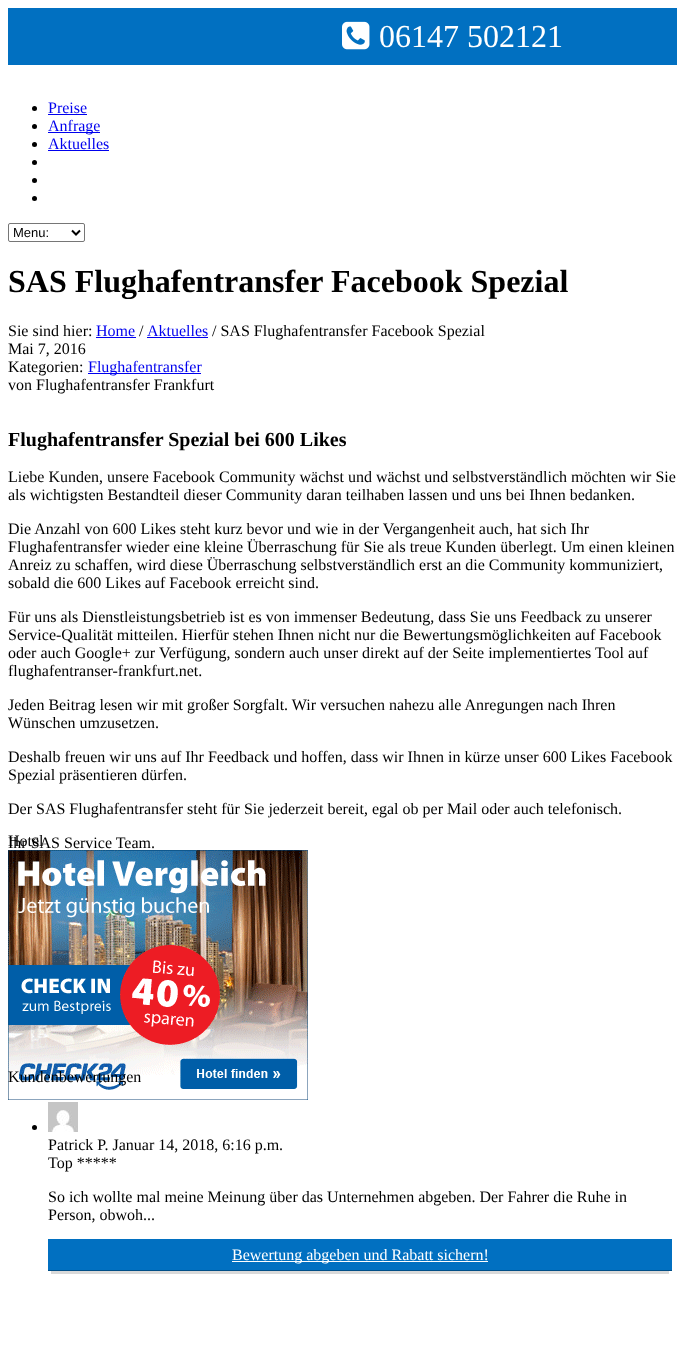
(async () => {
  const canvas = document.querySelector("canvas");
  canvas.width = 685;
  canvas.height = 1357;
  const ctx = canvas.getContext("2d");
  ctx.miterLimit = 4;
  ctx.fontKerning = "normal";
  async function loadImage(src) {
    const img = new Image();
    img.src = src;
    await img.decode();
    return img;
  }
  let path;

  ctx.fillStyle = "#ffffff";
  ctx.fillRect(0, 0, 685, 1357);
  ctx.fillStyle = "#0170c1";
  ctx.fillRect(8, 8, 669, 57);
  ctx.drawImage(await loadImage("img/1.png"), 342, 21, 28, 29);
  ctx.fillStyle = "#000000";
  ctx.beginPath();
  ctx.arc(34.5, 108.5, 2.5, 0, Math.PI * 2);
  ctx.fill();
  ctx.fillStyle = "#0000ee";
  ctx.fillRect(48, 114, 39, 1);
  ctx.fillStyle = "#000000";
  ctx.beginPath();
  ctx.arc(34.5, 126.5, 2.5, 0, Math.PI * 2);
  ctx.fill();
  ctx.fillStyle = "#0000ee";
  ctx.fillRect(48, 132, 52, 1);
  ctx.fillStyle = "#000000";
  ctx.beginPath();
  ctx.arc(34.5, 144.5, 2.5, 0, Math.PI * 2);
  ctx.fill();
  ctx.fillStyle = "#0000ee";
  ctx.fillRect(48, 150, 61, 1);
  ctx.fillStyle = "#000000";
  ctx.beginPath();
  ctx.arc(34.5, 162.5, 2.5, 0, Math.PI * 2);
  ctx.fill();
  ctx.beginPath();
  ctx.arc(34.5, 180.5, 2.5, 0, Math.PI * 2);
  ctx.fill();
  ctx.beginPath();
  ctx.arc(34.5, 198.5, 2.5, 0, Math.PI * 2);
  ctx.fill();
  ctx.beginPath();
  ctx.roundRect(8.5, 223.5, 76, 18, 1.5);
  ctx.strokeStyle = "#767676";
  ctx.stroke();
  path = new Path2D("M72 230.5L76 234.5L80 230.5");
  ctx.strokeStyle = "#000000";
  ctx.lineWidth = 2;
  ctx.stroke(path);
  for (const [x, y, w, h, color] of [
    [96, 337, 40, 1, "#0000ee"],
    [147, 337, 61, 1, "#0000ee"],
    [88, 373, 113, 1, "#0000ee"],
  ]) {
    ctx.fillStyle = color;
    ctx.fillRect(x, y, w, h);
  }
  ctx.drawImage(await loadImage("img/2.png"), 8, 850, 300, 250);
  ctx.fillStyle = "#000000";
  ctx.beginPath();
  ctx.arc(34.5, 1127.5, 2.5, 0, Math.PI * 2);
  ctx.fill();
  ctx.drawImage(await loadImage("img/3.png"), 48, 1102, 30, 30);
  for (const [x, y, w, h, color] of [
    [51, 1271, 618, 3, "#d9d9d9"],
    [48, 1239, 624, 31, "#0170c1"],
    [48, 1270, 624, 1, "#014e87"],
    [232, 1261, 256, 1, "#ffffff"],
  ]) {
    ctx.fillStyle = color;
    ctx.fillRect(x, y, w, h);
  }
  ctx.font = "32px Liberation Serif";
  ctx.fillText("06147 502121", 379, 47);
  ctx.font = "16px Liberation Serif";
  ctx.fillStyle = "#0000ee";
  for (const [text, x, y] of [
    ["Preise", 48, 113],
    ["Anfrage", 48, 131],
    ["Aktuelles", 48, 149],
  ]) {
    ctx.fillText(text, x, y);
  }
  ctx.font = "13px Liberation Sans";
  ctx.fillStyle = "#000000";
  ctx.fillText("Menu:", 13, 237);
  ctx.font = "bold 32px Liberation Serif";
  ctx.fillText("SAS Flughafentransfer Facebook Spezial", 8, 292);
  ctx.font = "16px Liberation Serif";
  ctx.fillText("Sie sind hier:", 8, 336);
  ctx.fillStyle = "#0000ee";
  ctx.fillText("Home", 96, 336);
  ctx.fillStyle = "#000000";
  ctx.fillText("/", 139, 336);
  ctx.fillStyle = "#0000ee";
  ctx.fillText("Aktuelles", 147, 336);
  ctx.fillStyle = "#000000";
  for (const [text, x, y] of [
    ["/ SAS Flughafentransfer Facebook Spezial", 212, 336],
    ["Mai 7, 2016", 8, 354],
    ["Kategorien:", 8, 372],
  ]) {
    ctx.fillText(text, x, y);
  }
  ctx.fillStyle = "#0000ee";
  ctx.fillText("Flughafentransfer", 88, 372);
  ctx.fillStyle = "#000000";
  ctx.fillText("von Flughafentransfer Frankfurt", 8, 390);
  ctx.font = "bold 20px Liberation Serif";
  ctx.fillText("Flughafentransfer Spezial bei 600 Likes", 8, 446);
  ctx.font = "16px Liberation Serif";
  for (const [text, x, y] of [
    ["Liebe Kunden, unsere Facebook Community wächst und wächst und selbstverständlich möchten wir Sie", 8, 482],
    ["als wichtigsten Bestandteil dieser Community daran teilhaben lassen und uns bei Ihnen bedanken.", 8, 500],
    ["Die Anzahl von 600 Likes steht kurz bevor und wie in der Vergangenheit auch, hat sich Ihr", 8, 534],
    ["Flughafentransfer wieder eine kleine Überraschung für Sie als treue Kunden überlegt. Um einen kleinen", 8, 552],
    ["Anreiz zu schaffen, wird diese Überraschung selbstverständlich erst an die Community kommuniziert,", 8, 570],
    ["sobald die 600 Likes auf Facebook erreicht sind.", 8, 588],
    ["Für uns als Dienstleistungsbetrieb ist es von immenser Bedeutung, dass Sie uns Feedback zu unserer", 8, 622],
    ["Service-Qualität mitteilen. Hierfür stehen Ihnen nicht nur die Bewertungsmöglichkeiten auf Facebook", 8, 640],
    ["oder auch Google+ zur Verfügung, sondern auch unser direkt auf der Seite implementiertes Tool auf", 8, 658],
    ["flughafentranser-frankfurt.net.", 8, 676],
    ["Jeden Beitrag lesen wir mit großer Sorgfalt. Wir versuchen nahezu alle Anregungen nach Ihren", 8, 710],
    ["Wünschen umzusetzen.", 8, 728],
    ["Deshalb freuen wir uns auf Ihr Feedback und hoffen, dass wir Ihnen in kürze unser 600 Likes Facebook", 8, 762],
    ["Spezial präsentieren dürfen.", 8, 780],
    ["Der SAS Flughafentransfer steht für Sie jederzeit bereit, egal ob per Mail oder auch telefonisch.", 8, 814],
    ["Ihr SAS Service Team.", 8, 848],
    ["Hotel", 8, 846],
    ["Kundenbewertungen", 8, 1082],
    ["Patrick P. Januar 14, 2018, 6:16 p.m.", 48, 1150],
    ["Top *****", 48, 1168],
    ["So ich wollte mal meine Meinung über das Unternehmen abgeben. Der Fahrer die Ruhe in", 48, 1202],
    ["Person, obwoh...", 48, 1220],
  ]) {
    ctx.fillText(text, x, y);
  }
  ctx.fillStyle = "#ffffff";
  ctx.fillText("Bewertung abgeben und Rabatt sichern!", 232, 1260);
})();
